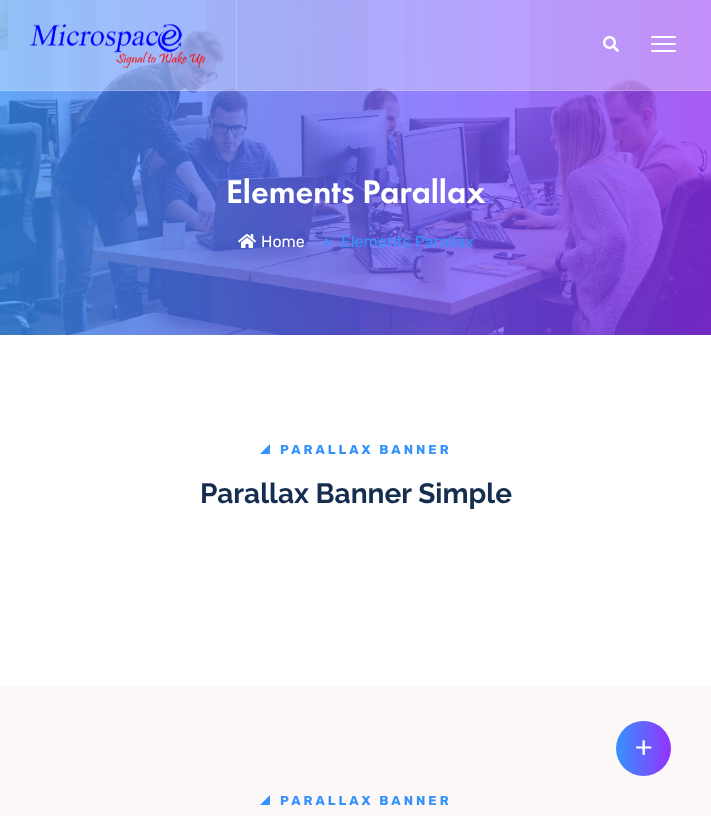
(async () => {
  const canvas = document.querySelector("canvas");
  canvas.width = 711;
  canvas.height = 816;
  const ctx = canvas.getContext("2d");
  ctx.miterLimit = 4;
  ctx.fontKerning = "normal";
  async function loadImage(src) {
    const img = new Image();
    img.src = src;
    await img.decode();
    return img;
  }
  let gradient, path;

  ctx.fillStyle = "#ffffff";
  ctx.fillRect(0, 0, 711, 816);
  ctx.drawImage(await loadImage("img/3.png"), 0, 0, 711, 335);
  for (const [x, y, w, h, color] of [
    [0, 0, 711, 91, "rgba(255, 255, 255, 0.31)"],
    [0, 90, 711, 1, "rgba(255, 255, 255, 0.2)"],
    [236, 0, 1, 90, "#b4c0f9"],
  ]) {
    ctx.fillStyle = color;
    ctx.fillRect(x, y, w, h);
  }
  ctx.drawImage(await loadImage("img/1.png"), 30, 23, 175, 45);
  ctx.drawImage(await loadImage("img/2.png"), 603, 36, 16, 16);
  ctx.fillStyle = "#ffffff";
  ctx.beginPath();
  ctx.roundRect(651, 36, 25, 2, 1);
  ctx.fill();
  ctx.beginPath();
  ctx.roundRect(651, 43, 25, 2, 1);
  ctx.fill();
  ctx.beginPath();
  ctx.roundRect(651, 50, 25, 2, 1);
  ctx.fill();
  ctx.drawImage(await loadImage("img/4.png"), 238, 234, 18, 14);
  ctx.drawImage(await loadImage("img/5.png"), 324, 238, 6, 9);
  ctx.fillStyle = "#3592fc";
  path = new Path2D("M270 454H260L270 444Z");
  ctx.fill(path);
  ctx.fillStyle = "#fdf8f8";
  ctx.fillRect(0, 686, 711, 130);
  ctx.fillStyle = "#3592fc";
  path = new Path2D("M270 805H260L270 795Z");
  ctx.fill(path);
  gradient = ctx.createLinearGradient(616, 749, 671, 749);
  gradient.addColorStop(0, "#3592fc");
  gradient.addColorStop(1, "#9432ff");
  ctx.fillStyle = gradient;
  ctx.beginPath();
  ctx.arc(643.5, 748.5, 27.5, 0, Math.PI * 2);
  ctx.fill();
  ctx.font = "500 34px Futura PT";
  ctx.fillStyle = "#ffffff";
  ctx.fillText("Elements Parallax", 226, 203);
  ctx.font = "16px Rubik";
  ctx.fillText("Home", 261, 247);
  ctx.fillStyle = "#3592fc";
  ctx.fillText("Elements Parallax", 341, 247);
  ctx.letterSpacing = "3px";
  ctx.font = "bold 13px Rubik";
  ctx.fillText("PARALLAX BANNER", 280, 454);
  ctx.letterSpacing = "0px";
  ctx.font = "100 28px Raleway";
  ctx.fillStyle = "#152d4e";
  ctx.fillText("Parallax Banner Simple", 200, 503);
  ctx.letterSpacing = "3px";
  ctx.font = "bold 13px Rubik";
  ctx.fillStyle = "#3592fc";
  ctx.fillText("PARALLAX BANNER", 280, 805);
  ctx.letterSpacing = "0px";
  ctx.font = "28px Rubik";
  ctx.fillStyle = "#ffffff";
  ctx.fillText("+", 635, 756);
})();
